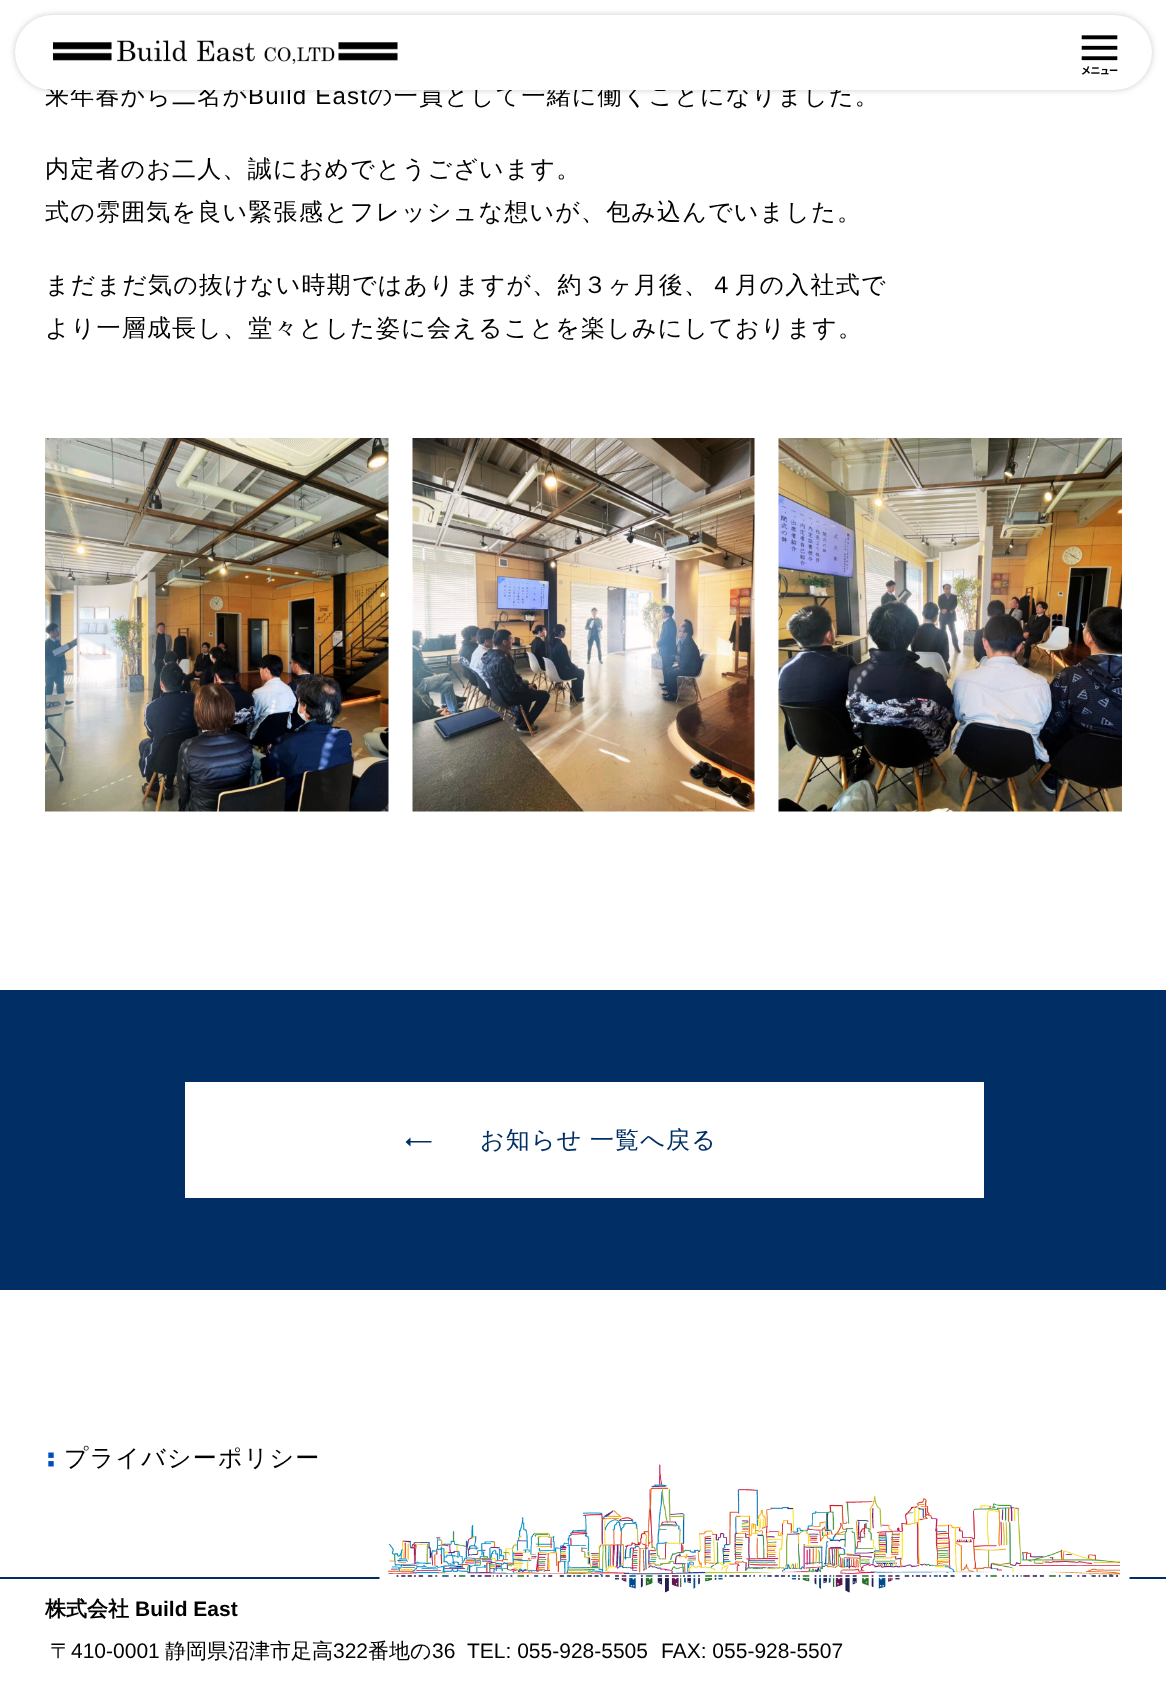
(async () => {
  const canvas = document.querySelector("canvas");
  canvas.width = 1166;
  canvas.height = 1693;
  const ctx = canvas.getContext("2d");
  ctx.miterLimit = 4;
  ctx.fontKerning = "normal";
  async function loadImage(src) {
    const img = new Image();
    img.src = src;
    await img.decode();
    return img;
  }
  let path;

  ctx.fillStyle = "#ffffff";
  ctx.fillRect(0, 0, 1166, 1693);
  ctx.fillStyle = "#cccccc";
  ctx.filter = "blur(3px)";
  ctx.beginPath();
  ctx.roundRect(15, 15, 1137, 75, 37.5);
  ctx.fill();
  ctx.filter = "none";
  ctx.drawImage(await loadImage("img/3.png"), 45, 438, 344, 374);
  ctx.drawImage(await loadImage("img/4.png"), 412, 438, 343, 374);
  ctx.drawImage(await loadImage("img/5.png"), 778, 438, 344, 374);
  ctx.fillStyle = "#002e65";
  ctx.fillRect(0, 990, 1166, 300);
  ctx.fillStyle = "#ffffff";
  ctx.fillRect(185, 1082, 799, 116);
  ctx.fillStyle = "#002e65";
  path = new Path2D("M405.5 1142L410.5 1146.5V1142.5H431.5V1141H410.5V1137.5Z");
  ctx.fill(path);
  ctx.drawImage(await loadImage("img/6.png"), 48, 1452, 6, 15);
  ctx.fillRect(0, 1577, 1166, 2);
  ctx.drawImage(await loadImage("img/7.png"), 379, 1464, 751, 129);
  ctx.letterSpacing = "1.2px";
  ctx.font = "500 24px WenQuanYi Zen Hei";
  ctx.fillStyle = "#000000";
  ctx.fillText("来年春から二名が", 45, 104);
  ctx.font = "24px Liberation Sans";
  ctx.fillText("Build East", 248, 104);
  ctx.font = "500 24px WenQuanYi Zen Hei";
  ctx.fillText("の一員として一緒に働くことになりました。", 368, 104);
  ctx.fillStyle = "#ffffff";
  ctx.beginPath();
  ctx.roundRect(15, 15, 1137, 75, 37.5);
  ctx.fill();
  ctx.drawImage(await loadImage("img/2.png"), 1081, 35, 37, 40);
  ctx.drawImage(await loadImage("img/1.png"), 53, 40, 345, 25);
  ctx.fillStyle = "#000000";
  for (const [text, x, y] of [
    ["内定者のお二人、誠におめでとうございます。", 45, 177],
    ["式の雰囲気を良い緊張感とフレッシュな想いが、包み込んでいました。", 45, 220],
    ["まだまだ気の抜けない時期ではありますが、約３ヶ月後、４月の入社式で", 45, 293],
    ["より一層成長し、堂々とした姿に会えることを楽しみにしております。", 45, 336],
  ]) {
    ctx.fillText(text, x, y);
  }
  ctx.wordSpacing = "-1px";
  ctx.fillStyle = "#002e65";
  ctx.fillText("お知らせ 一覧へ戻る", 480, 1148);
  ctx.wordSpacing = "0px";
  ctx.fillStyle = "#000000";
  ctx.fillText("プライバシーポリシー", 64, 1466);
  ctx.letterSpacing = "0px";
  ctx.font = "bold 21px WenQuanYi Zen Hei";
  ctx.fillText("株式会社", 45, 1616);
  ctx.font = "bold 21px Liberation Sans";
  ctx.fillText("Build East", 135, 1616);
  ctx.font = "500 21px WenQuanYi Zen Hei";
  ctx.fillText("〒", 50, 1658);
  ctx.font = "21px Liberation Sans";
  ctx.fillText("410-0001", 71, 1658);
  ctx.font = "500 21px WenQuanYi Zen Hei";
  ctx.fillText("静岡県沼津市足高", 165, 1658);
  ctx.font = "21px Liberation Sans";
  ctx.fillText("322", 333, 1658);
  ctx.font = "500 21px WenQuanYi Zen Hei";
  ctx.fillText("番地の", 368, 1658);
  ctx.font = "21px Liberation Sans";
  for (const [text, x, y] of [
    ["36", 432, 1658],
    ["TEL: 055-928-5505", 467, 1658],
    ["FAX: 055-928-5507", 661, 1658],
  ]) {
    ctx.fillText(text, x, y);
  }
})();
